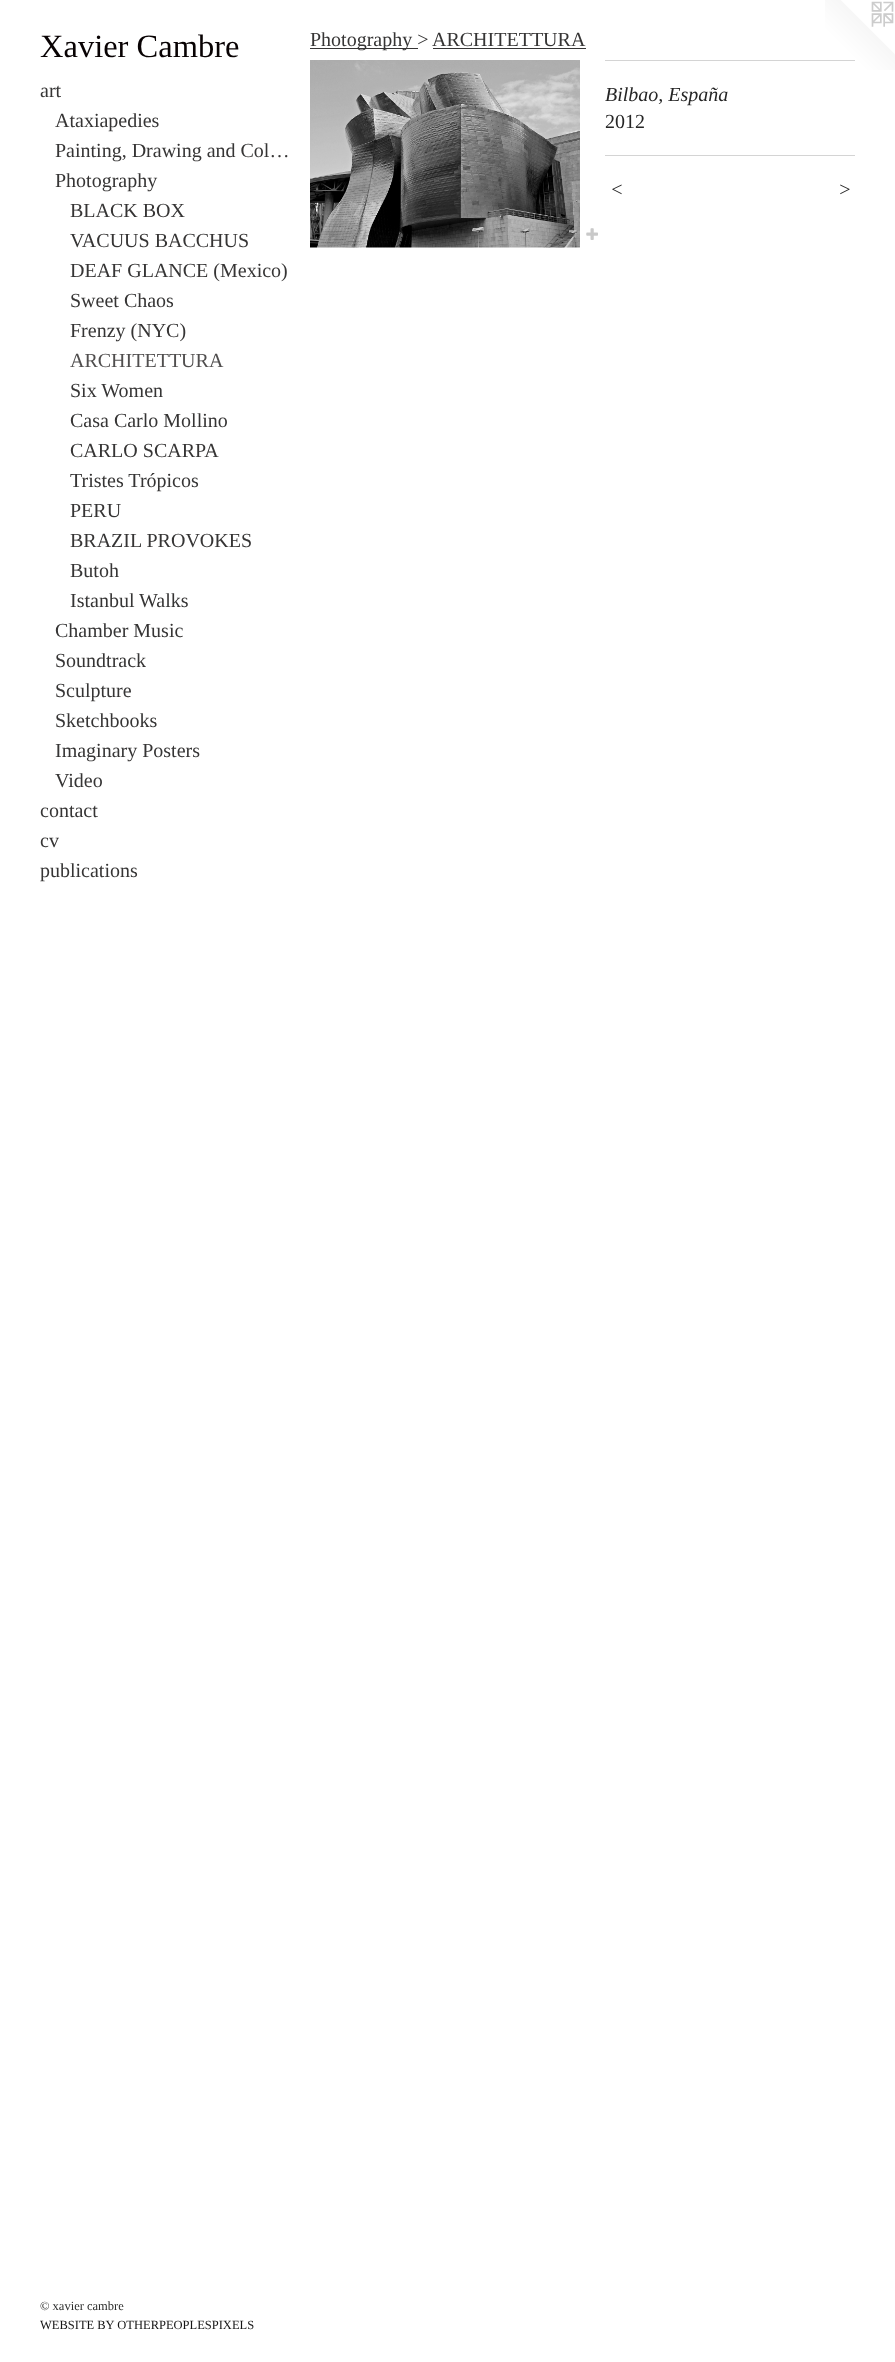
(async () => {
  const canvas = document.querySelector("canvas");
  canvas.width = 895;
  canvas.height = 2362;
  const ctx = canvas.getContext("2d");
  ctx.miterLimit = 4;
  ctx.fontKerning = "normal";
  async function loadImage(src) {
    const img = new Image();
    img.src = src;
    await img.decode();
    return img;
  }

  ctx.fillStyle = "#ffffff";
  ctx.fillRect(0, 0, 895, 2362);
  ctx.fillStyle = "#363535";
  ctx.fillRect(310, 48, 108, 1);
  ctx.fillRect(433, 48, 153, 1);
  ctx.drawImage(await loadImage("img/1.png"), 310, 60, 270, 188);
  ctx.drawImage(await loadImage("img/2.png"), 586, 228, 12, 12);
  ctx.drawImage(await loadImage("img/3.png"), 825, 0, 70, 70);
  ctx.fillStyle = "#d4d4d4";
  ctx.fillRect(605, 60, 250, 1);
  ctx.fillRect(605, 155, 250, 1);
  ctx.font = "32.5px Liberation Serif";
  ctx.fillStyle = "#080203";
  ctx.fillText("Xavier Cambre", 40, 57);
  ctx.font = "20px Liberation Serif";
  ctx.fillStyle = "#363535";
  for (const [text, x, y] of [
    ["art", 40, 97],
    ["Ataxiapedies", 55, 127],
    ["Painting, Drawing and Col…", 55, 157],
    ["Photography", 55, 187],
    ["BLACK BOX", 70, 217],
    ["VACUUS BACCHUS", 70, 247],
    ["DEAF GLANCE (Mexico)", 70, 277],
    ["Sweet Chaos", 70, 307],
    ["Frenzy (NYC)", 70, 337],
  ]) {
    ctx.fillText(text, x, y);
  }
  ctx.fillStyle = "#504e4e";
  ctx.fillText("ARCHITETTURA", 70, 367);
  ctx.fillStyle = "#363535";
  for (const [text, x, y] of [
    ["Six Women", 70, 397],
    ["Casa Carlo Mollino", 70, 427],
    ["CARLO SCARPA", 70, 457],
    ["Tristes Trópicos", 70, 487],
    ["PERU", 70, 517],
    ["BRAZIL PROVOKES", 70, 547],
    ["Butoh", 70, 577],
    ["Istanbul Walks", 70, 607],
    ["Chamber Music", 55, 637],
    ["Soundtrack", 55, 667],
    ["Sculpture", 55, 697],
    ["Sketchbooks", 55, 727],
    ["Imaginary Posters", 55, 757],
    ["Video", 55, 787],
    ["contact", 40, 817],
    ["cv", 40, 847],
    ["publications", 40, 877],
  ]) {
    ctx.fillText(text, x, y);
  }
  ctx.font = "12.5px Liberation Serif";
  ctx.fillStyle = "#2b2c2b";
  ctx.fillText("© xavier cambre", 40, 2310);
  ctx.fillStyle = "#141414";
  ctx.fillText("WEBSITE BY OTHERPEOPLESPIXELS", 40, 2329);
  ctx.font = "20px Liberation Serif";
  ctx.fillStyle = "#363535";
  ctx.fillText("Photography >", 310, 46);
  ctx.fillText("ARCHITETTURA", 432, 46);
  ctx.font = "italic 20px Liberation Serif";
  ctx.fillStyle = "#262626";
  ctx.fillText("Bilbao, España", 605, 101);
  ctx.font = "20px Liberation Serif";
  ctx.fillText("2012", 605, 128);
  ctx.letterSpacing = "1px";
  ctx.font = "italic 20px Liberation Serif";
  ctx.fillText("<", 610, 196);
  ctx.fillText(">", 838, 196);
})();
